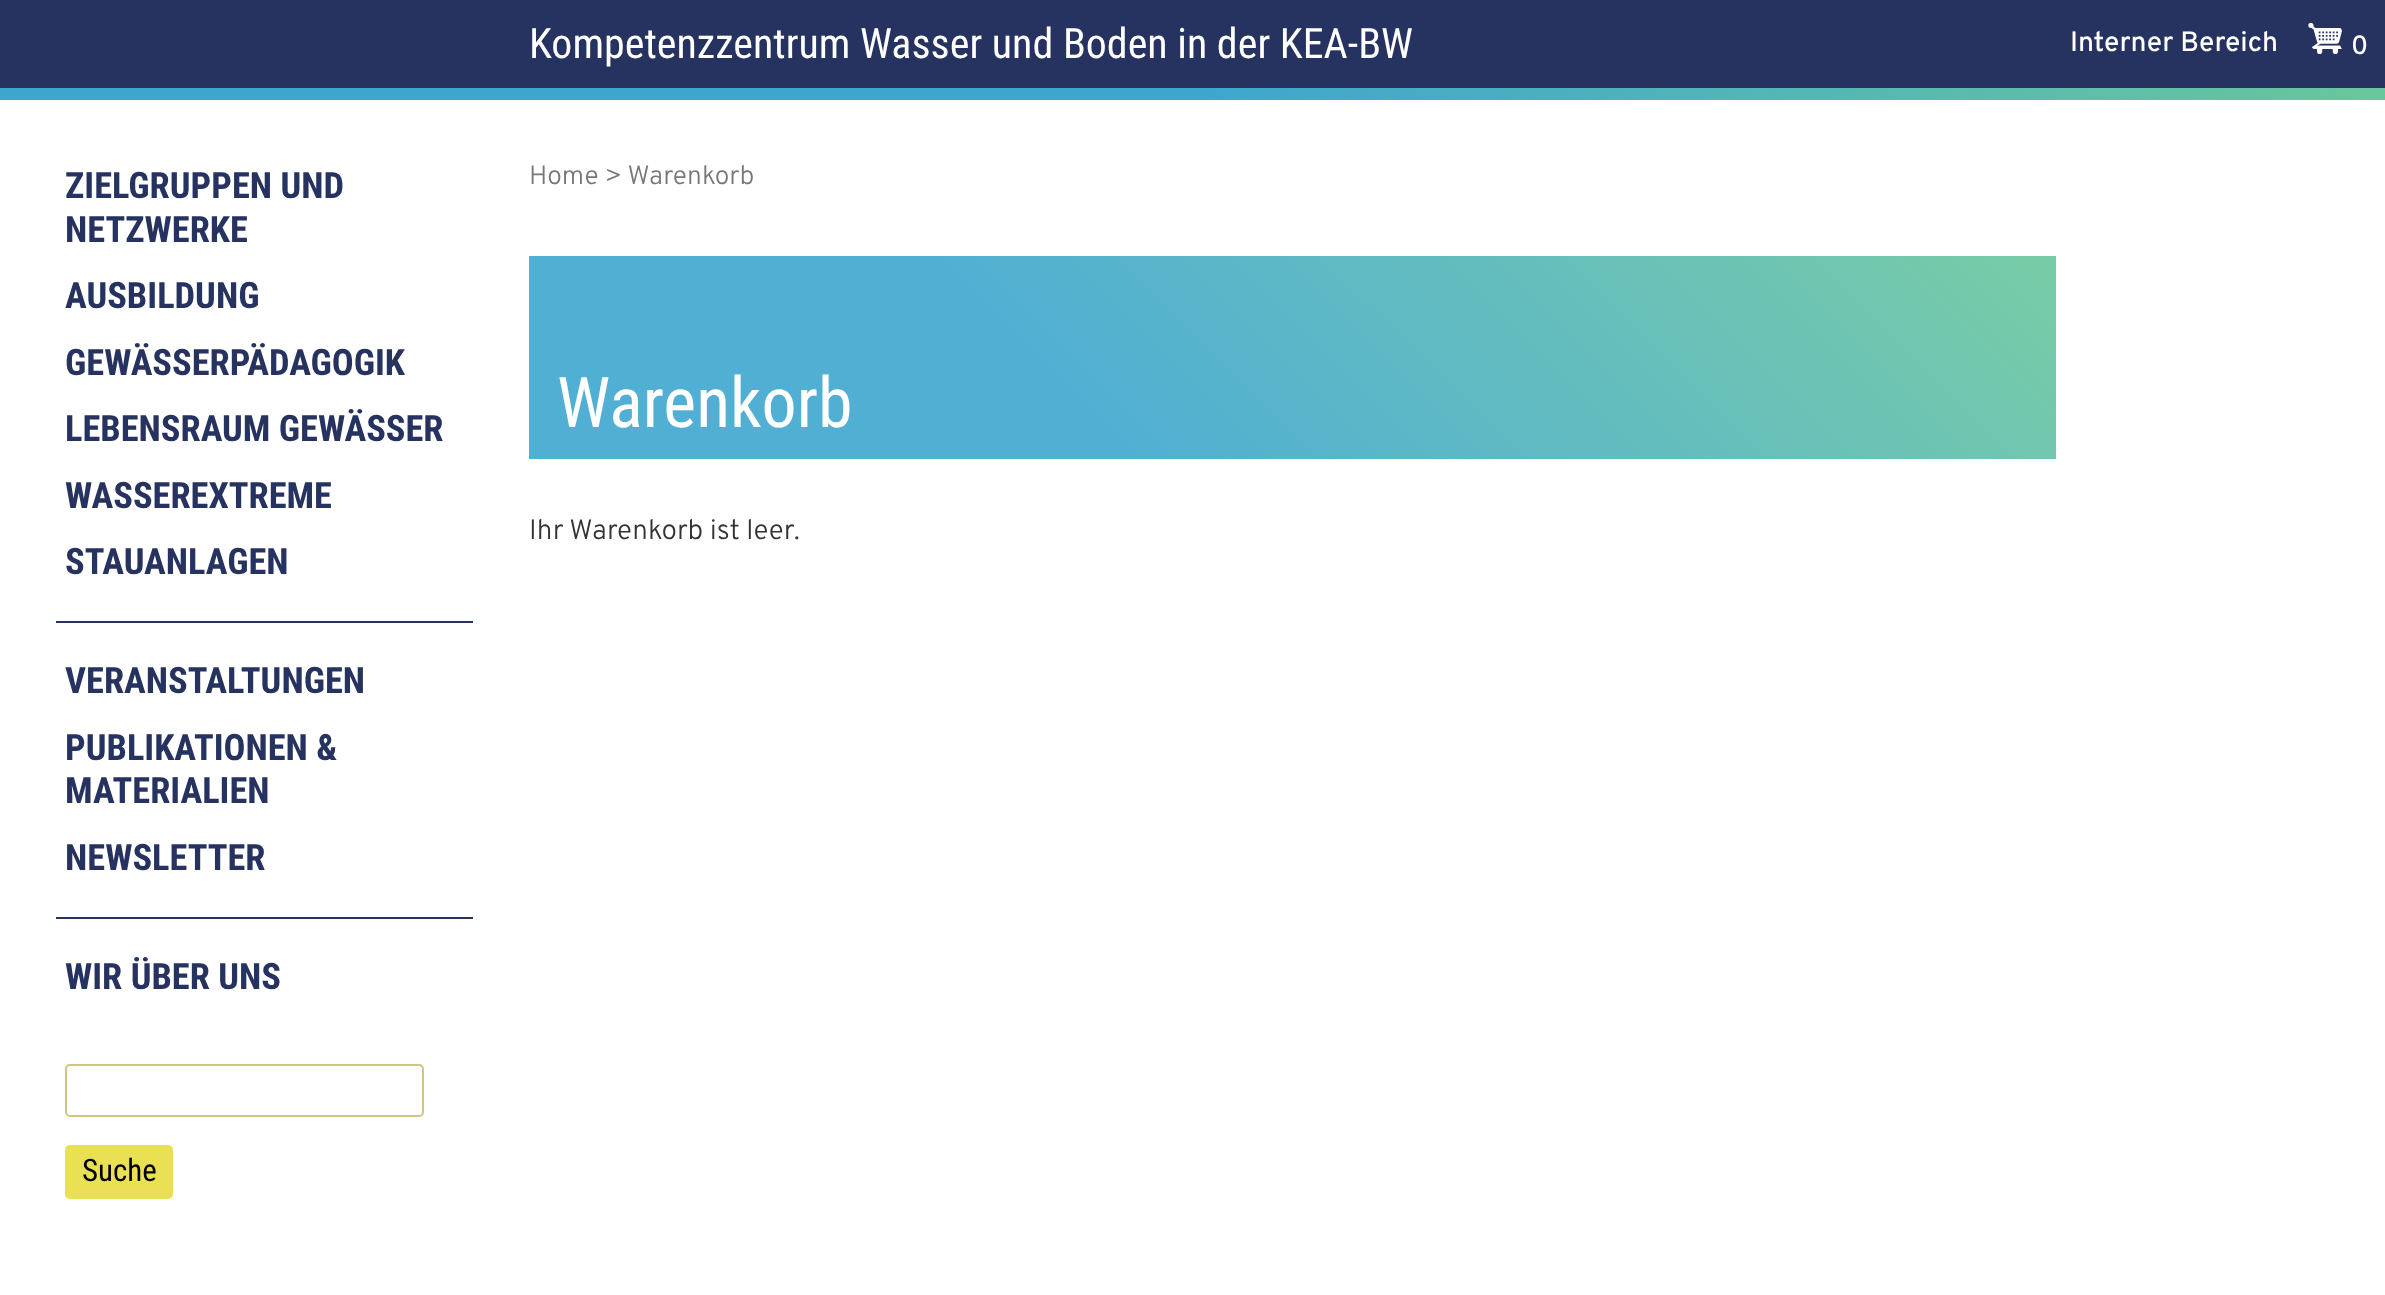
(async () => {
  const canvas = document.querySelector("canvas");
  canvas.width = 2385;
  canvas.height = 1295;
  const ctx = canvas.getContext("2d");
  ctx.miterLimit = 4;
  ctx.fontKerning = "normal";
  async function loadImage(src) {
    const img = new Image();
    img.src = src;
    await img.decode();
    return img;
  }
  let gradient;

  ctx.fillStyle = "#ffffff";
  ctx.fillRect(0, 0, 2385, 1295);
  ctx.fillStyle = "#263260";
  ctx.fillRect(0, 0, 2385, 88);
  ctx.drawImage(await loadImage("img/1.png"), 2308, 23, 34, 31);
  gradient = ctx.createLinearGradient(0, 94, 2385, 94);
  gradient.addColorStop(0, "#3ea6ce");
  gradient.addColorStop(0.5, "#3ea6ce");
  gradient.addColorStop(1, "#69c69c");
  ctx.fillStyle = gradient;
  ctx.fillRect(0, 88, 2385, 12);
  ctx.fillStyle = "#263260";
  ctx.fillRect(56, 621, 417, 2);
  ctx.fillRect(56, 917, 417, 2);
  ctx.beginPath();
  ctx.roundRect(66, 1065, 357, 51, 4);
  ctx.strokeStyle = "#d2c57f";
  ctx.lineWidth = 2;
  ctx.stroke();
  ctx.fillStyle = "#eae053";
  ctx.beginPath();
  ctx.roundRect(65, 1145, 108, 54, 5);
  ctx.fill();
  gradient = ctx.createLinearGradient(860, 790, 1725, -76);
  gradient.addColorStop(0.25, "#51afd3");
  gradient.addColorStop(0.35, "#51afd3");
  gradient.addColorStop(1, "#78cca6");
  ctx.fillStyle = gradient;
  ctx.fillRect(529, 256, 1527, 203);
  ctx.font = "42px Roboto Condensed";
  ctx.fillStyle = "#ffffff";
  ctx.fillText("Kompetenzzentrum Wasser und Boden in der KEA-BW", 529, 58);
  ctx.font = "500 28px Overpass";
  ctx.fillText("Interner Bereich", 2070, 51);
  ctx.font = "500 26.5px Overpass";
  ctx.fillText("0", 2351, 54);
  ctx.font = "bold 36.4px Roboto Condensed";
  ctx.fillStyle = "#263260";
  for (const [text, x, y] of [
    ["ZIELGRUPPEN UND", 65, 198],
    ["NETZWERKE", 65, 242],
    ["AUSBILDUNG", 65, 308],
    ["GEWÄSSERPÄDAGOGIK", 65, 375],
    ["LEBENSRAUM GEWÄSSER", 65, 441],
    ["WASSEREXTREME", 65, 508],
    ["STAUANLAGEN", 65, 574],
    ["VERANSTALTUNGEN", 65, 693],
    ["PUBLIKATIONEN &", 65, 760],
    ["MATERIALIEN", 65, 803],
    ["NEWSLETTER", 65, 870],
    ["WIR ÜBER UNS", 65, 989],
  ]) {
    ctx.fillText(text, x, y);
  }
  ctx.font = "31px Roboto Condensed";
  ctx.fillStyle = "#000000";
  ctx.fillText("Suche", 82, 1181);
  ctx.font = "300 26.5px Overpass";
  ctx.fillStyle = "#777777";
  ctx.fillText("Home > Warenkorb", 529, 184);
  ctx.font = "70px Roboto Condensed";
  ctx.fillStyle = "#ffffff";
  ctx.fillText("Warenkorb", 557, 427);
  ctx.font = "300 28px Overpass";
  ctx.fillStyle = "#333333";
  ctx.fillText("Ihr Warenkorb ist leer.", 529, 539);
})();
